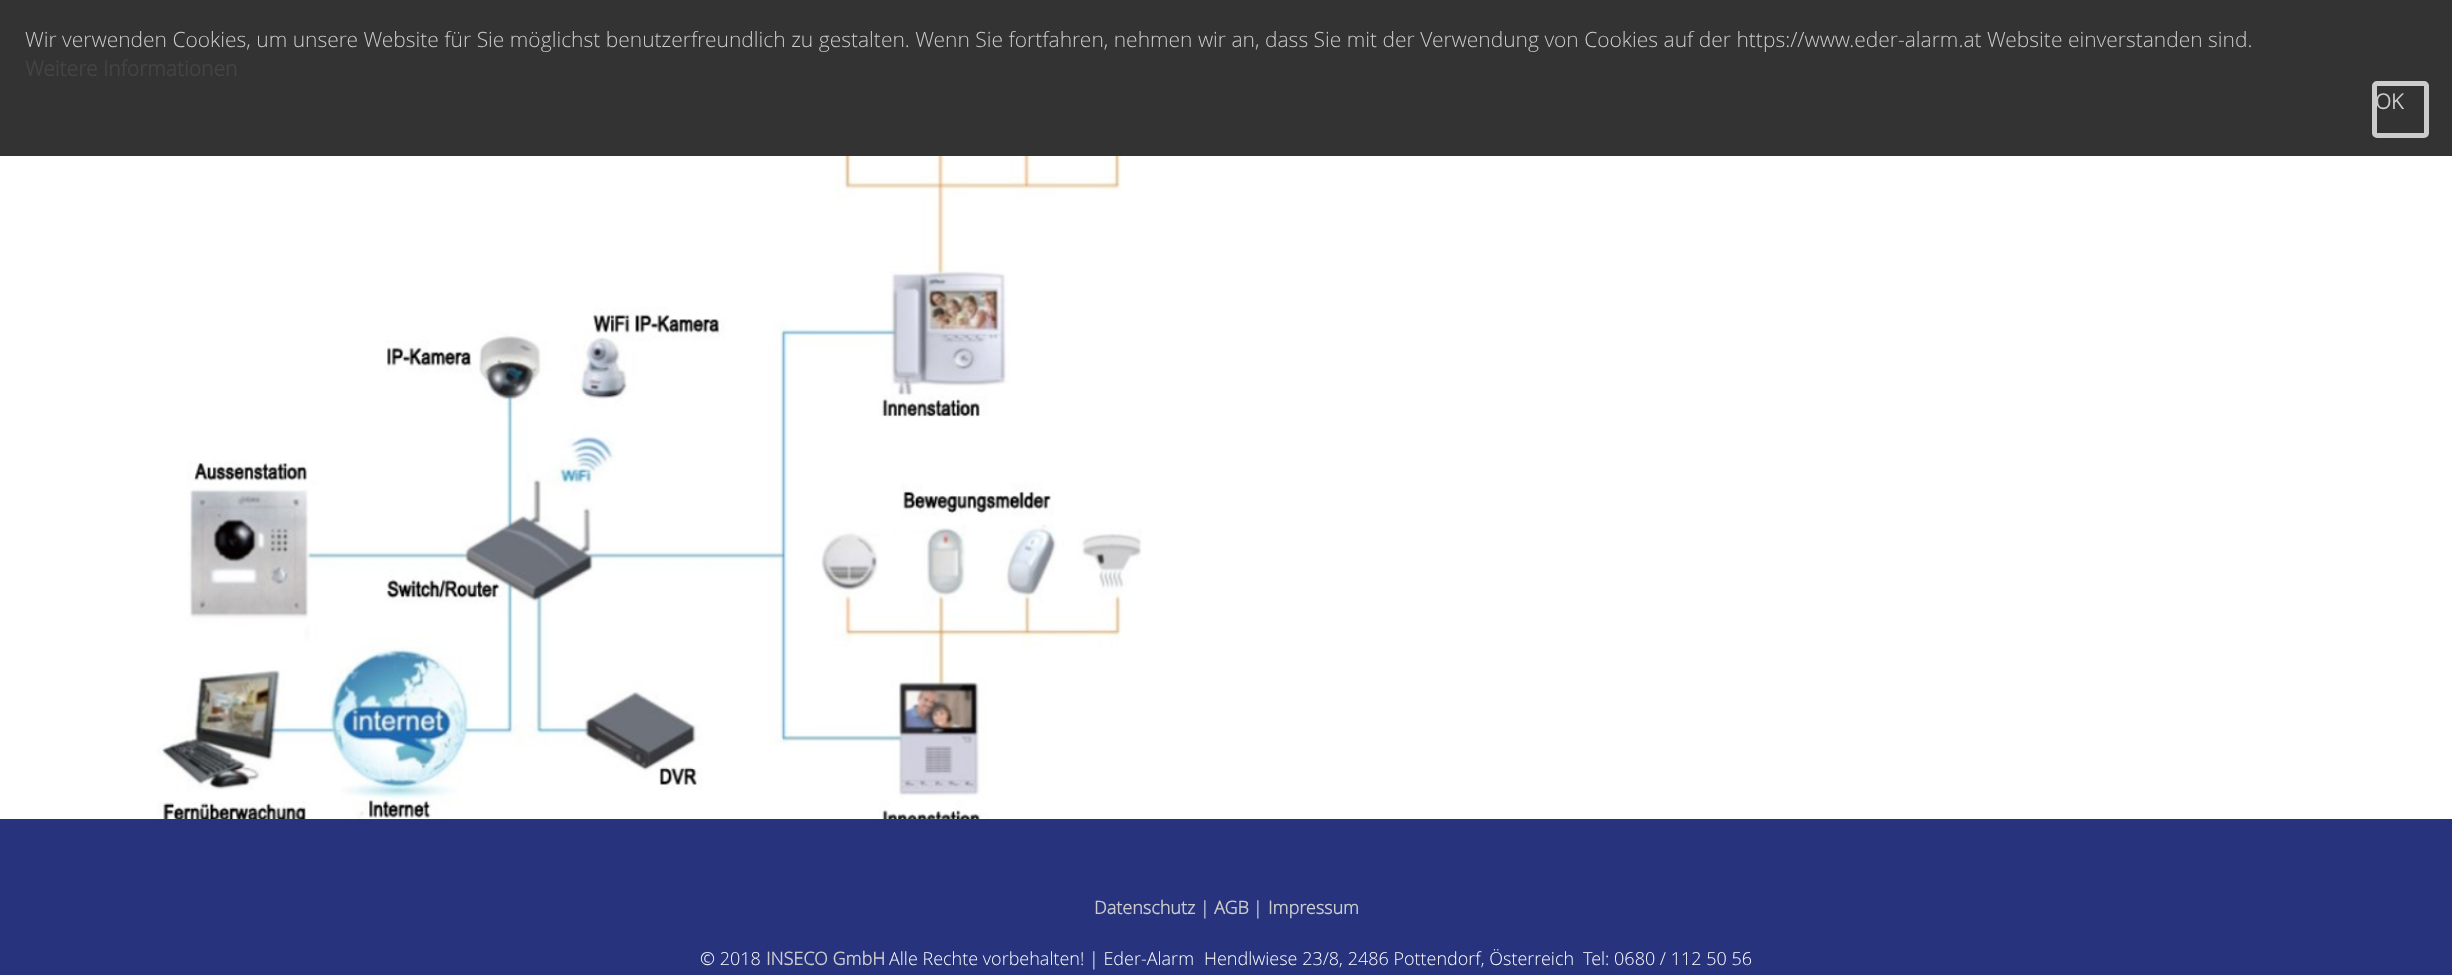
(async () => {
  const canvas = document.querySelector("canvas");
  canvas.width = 2452;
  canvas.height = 975;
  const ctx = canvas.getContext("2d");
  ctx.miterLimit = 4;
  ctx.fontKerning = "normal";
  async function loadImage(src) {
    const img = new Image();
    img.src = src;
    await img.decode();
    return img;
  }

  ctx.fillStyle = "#ffffff";
  ctx.fillRect(0, 0, 2452, 975);
  ctx.fillStyle = "#333333";
  ctx.fillRect(0, 0, 2452, 156);
  ctx.beginPath();
  ctx.roundRect(2374.5, 83.5, 52, 52, 2.5);
  ctx.strokeStyle = "#cccccc";
  ctx.lineWidth = 5;
  ctx.stroke();
  ctx.drawImage(await loadImage("img/1.png"), 157, 156, 985, 663);
  ctx.fillStyle = "#27337d";
  ctx.fillRect(0, 819, 2452, 156);
  ctx.font = "300 21px Open Sans";
  ctx.fillStyle = "#cccccc";
  ctx.fillText("Wir verwenden Cookies, um unsere Website für Sie möglichst benutzerfreundlich zu gestalten. Wenn Sie fortfahren, nehmen wir an, dass Sie mit der Verwendung von Cookies auf der https://www.eder-alarm.at Website einverstanden sind.", 25, 47);
  ctx.font = "bold 21px Open Sans";
  ctx.fillStyle = "#444444";
  ctx.fillText("Weitere Informationen", 25, 76);
  ctx.fillStyle = "#cccccc";
  ctx.fillText("OK", 2375, 109);
  ctx.font = "bold 18px Open Sans";
  ctx.fillText("Datenschutz", 1094, 914);
  ctx.font = "300 18px Open Sans";
  ctx.fillStyle = "#ffffff";
  ctx.fillText("|", 1200, 914);
  ctx.font = "bold 18px Open Sans";
  ctx.fillStyle = "#cccccc";
  ctx.fillText("AGB", 1214, 914);
  ctx.font = "300 18px Open Sans";
  ctx.fillStyle = "#ffffff";
  ctx.fillText("|", 1253, 914);
  ctx.font = "bold 18px Open Sans";
  ctx.fillStyle = "#cccccc";
  ctx.fillText("Impressum", 1268, 914);
  ctx.font = "300 18px Open Sans";
  ctx.fillStyle = "#ffffff";
  ctx.fillText("© 2018", 700, 965);
  ctx.font = "bold 18px Open Sans";
  ctx.fillStyle = "#cccccc";
  ctx.fillText("INSECO GmbH", 766, 965);
  ctx.font = "300 18px Open Sans";
  ctx.fillStyle = "#ffffff";
  for (const [text, x, y] of [
    ["Alle Rechte vorbehalten! | Eder-Alarm", 889, 965],
    ["Hendlwiese 23/8, 2486 Pottendorf, Österreich", 1204, 965],
    ["Tel: 0680 / 112 50 56", 1583, 965],
  ]) {
    ctx.fillText(text, x, y);
  }
})();
